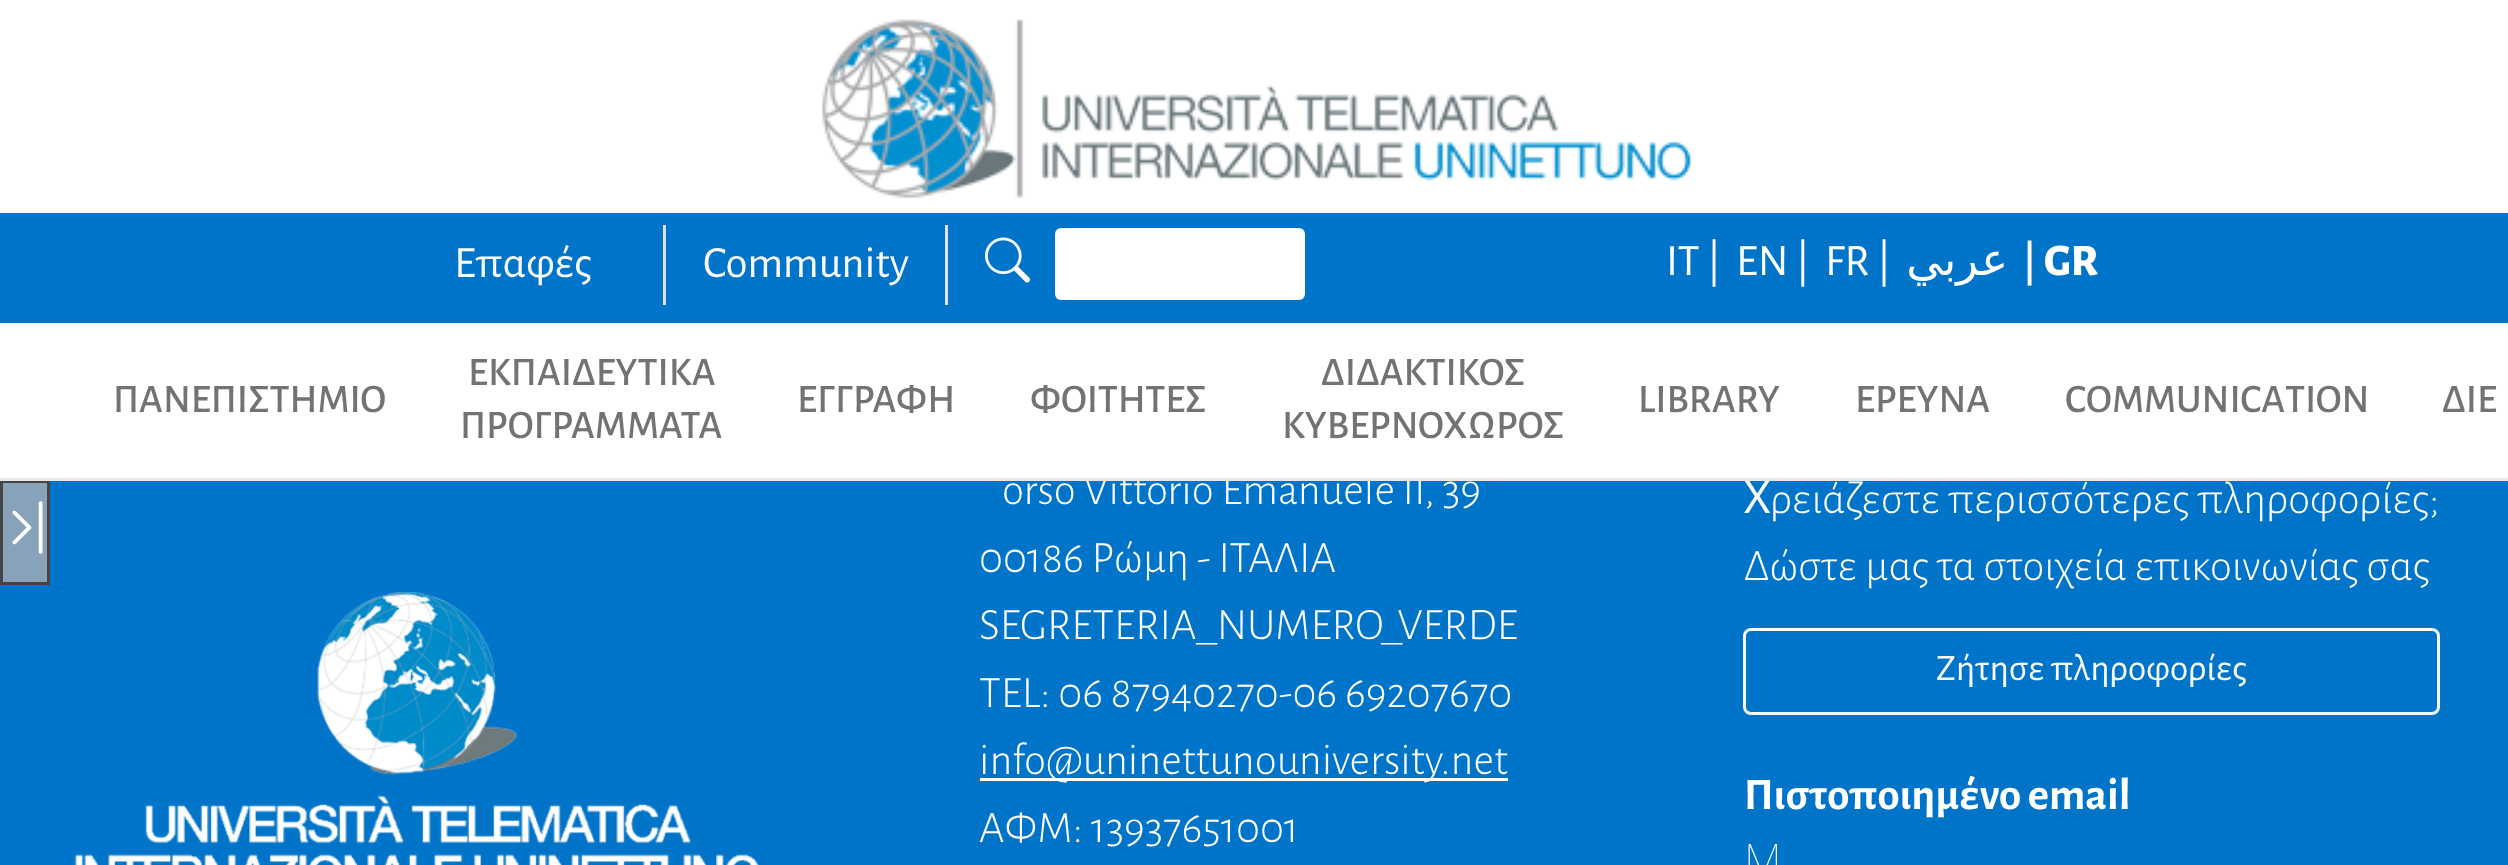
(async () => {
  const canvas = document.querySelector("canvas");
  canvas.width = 2508;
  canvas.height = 865;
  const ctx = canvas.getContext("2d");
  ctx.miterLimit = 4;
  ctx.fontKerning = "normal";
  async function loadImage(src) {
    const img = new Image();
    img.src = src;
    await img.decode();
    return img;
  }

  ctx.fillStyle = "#0074c9";
  ctx.fillRect(0, 0, 2508, 865);
  ctx.fillStyle = "#ffffff";
  ctx.fillRect(0, 0, 2508, 478);
  ctx.drawImage(await loadImage("img/1.png"), 821, 19, 870, 180);
  for (const [x, y, w, h, color] of [
    [0, 213, 2508, 110, "#0074c9"],
    [663, 225, 3, 80, "#dee2e6"],
    [945, 225, 3, 80, "#dee2e6"],
  ]) {
    ctx.fillStyle = color;
    ctx.fillRect(x, y, w, h);
  }
  ctx.drawImage(await loadImage("img/2.png"), 984, 237, 46, 46);
  ctx.fillStyle = "#ffffff";
  ctx.beginPath();
  ctx.roundRect(1055, 228, 250, 72, 6);
  ctx.fill();
  ctx.fillStyle = "#87a2b9";
  ctx.beginPath();
  ctx.rect(1.5, 481.5, 47, 102);
  ctx.fill();
  ctx.strokeStyle = "#444444";
  ctx.lineWidth = 3;
  ctx.stroke();
  ctx.drawImage(await loadImage("img/3.png"), 12, 501, 31, 53);
  ctx.drawImage(await loadImage("img/4.png"), 75, 592, 684, 273);
  ctx.fillStyle = "#ffffff";
  ctx.fillRect(980, 778, 528, 3);
  ctx.beginPath();
  ctx.roundRect(1744.5, 629.5, 694, 84, 6.5);
  ctx.strokeStyle = "#f8f9fa";
  ctx.stroke();
  ctx.font = "45px Alegreya Sans";
  ctx.fillStyle = "#f8f9fa";
  ctx.fillText("Επαφές", 454, 277);
  ctx.fillText("Community", 703, 277);
  ctx.fillStyle = "#ffffff";
  for (const [text, x, y] of [
    ["IT |", 1666, 275],
    ["EN |", 1736, 275],
    ["FR |", 1825, 275],
  ]) {
    ctx.fillText(text, x, y);
  }
  ctx.direction = "rtl";
  ctx.font = "45px DejaVu Sans";
  ctx.fillText("عربي", 2008, 275);
  ctx.direction = "ltr";
  ctx.fillText("|", 2022, 275);
  ctx.font = "800 45px Alegreya Sans";
  ctx.fillText("GR", 2044, 275);
  ctx.font = "500 40.5px Alegreya Sans";
  ctx.fillStyle = "#737373";
  for (const [text, x, y] of [
    ["ΠΑΝΕΠΙΣΤΗΜΙΟ", 113, 412],
    ["ΕΚΠΑΙΔΕΥΤΙΚΑ", 468, 385],
    ["ΠΡΟΓΡΑΜΜΑΤΑ", 460, 438],
    ["ΕΓΓΡΑΦΗ", 797, 412],
    ["ΦΟΙΤΗΤΕΣ", 1030, 412],
    ["ΔΙΔΑΚΤΙΚΟΣ", 1321, 385],
    ["ΚΥΒΕΡΝΟΧΩΡΟΣ", 1282, 438],
    ["LIBRARY", 1638, 412],
    ["ΕΡΕΥΝΑ", 1855, 412],
    ["COMMUNICATION", 2065, 412],
    ["ΔΙΕ", 2442, 412],
  ]) {
    ctx.fillText(text, x, y);
  }
  ctx.font = "300 45px Alegreya Sans";
  ctx.fillStyle = "#ffffff";
  for (const [text, x, y] of [
    ["orso Vittorio Emanuele II, 39", 1002, 504],
    ["00186 Ρώμη - ΙΤΑΛΙΑ", 979, 572],
    ["SEGRETERIA_NUMERO_VERDE", 979, 639],
    ["TEL: 06 87940270-06 69207670", 979, 707],
    ["info@uninettunouniversity.net", 979, 774],
    ["ΑΦΜ: 13937651001", 979, 842],
  ]) {
    ctx.fillText(text, x, y);
  }
  ctx.font = "45px Noto Sans";
  ctx.fillText("Χ", 1744, 513);
  ctx.fillStyle = "#e8e8e8";
  ctx.fillRect(0, 478, 2508, 3);
  ctx.font = "300 45px Alegreya Sans";
  ctx.fillStyle = "#ffffff";
  ctx.fillText("ρειάζεστε περισσότερες πληροφορίες;", 1770, 513);
  ctx.fillText("Δώστε μας τα στοιχεία επικοινωνίας σας", 1744, 580);
  ctx.font = "37.5px Alegreya Sans";
  ctx.fillStyle = "#f8f9fa";
  ctx.fillText("Ζήτησε πληροφορίες", 1936, 680);
  ctx.font = "bold 45px Alegreya Sans";
  ctx.fillStyle = "#ffffff";
  ctx.fillText("Πιστοποιημένο email", 1744, 809);
  ctx.font = "100 45px Noto Sans";
  ctx.fillText("Μ", 1744, 876);
})();
